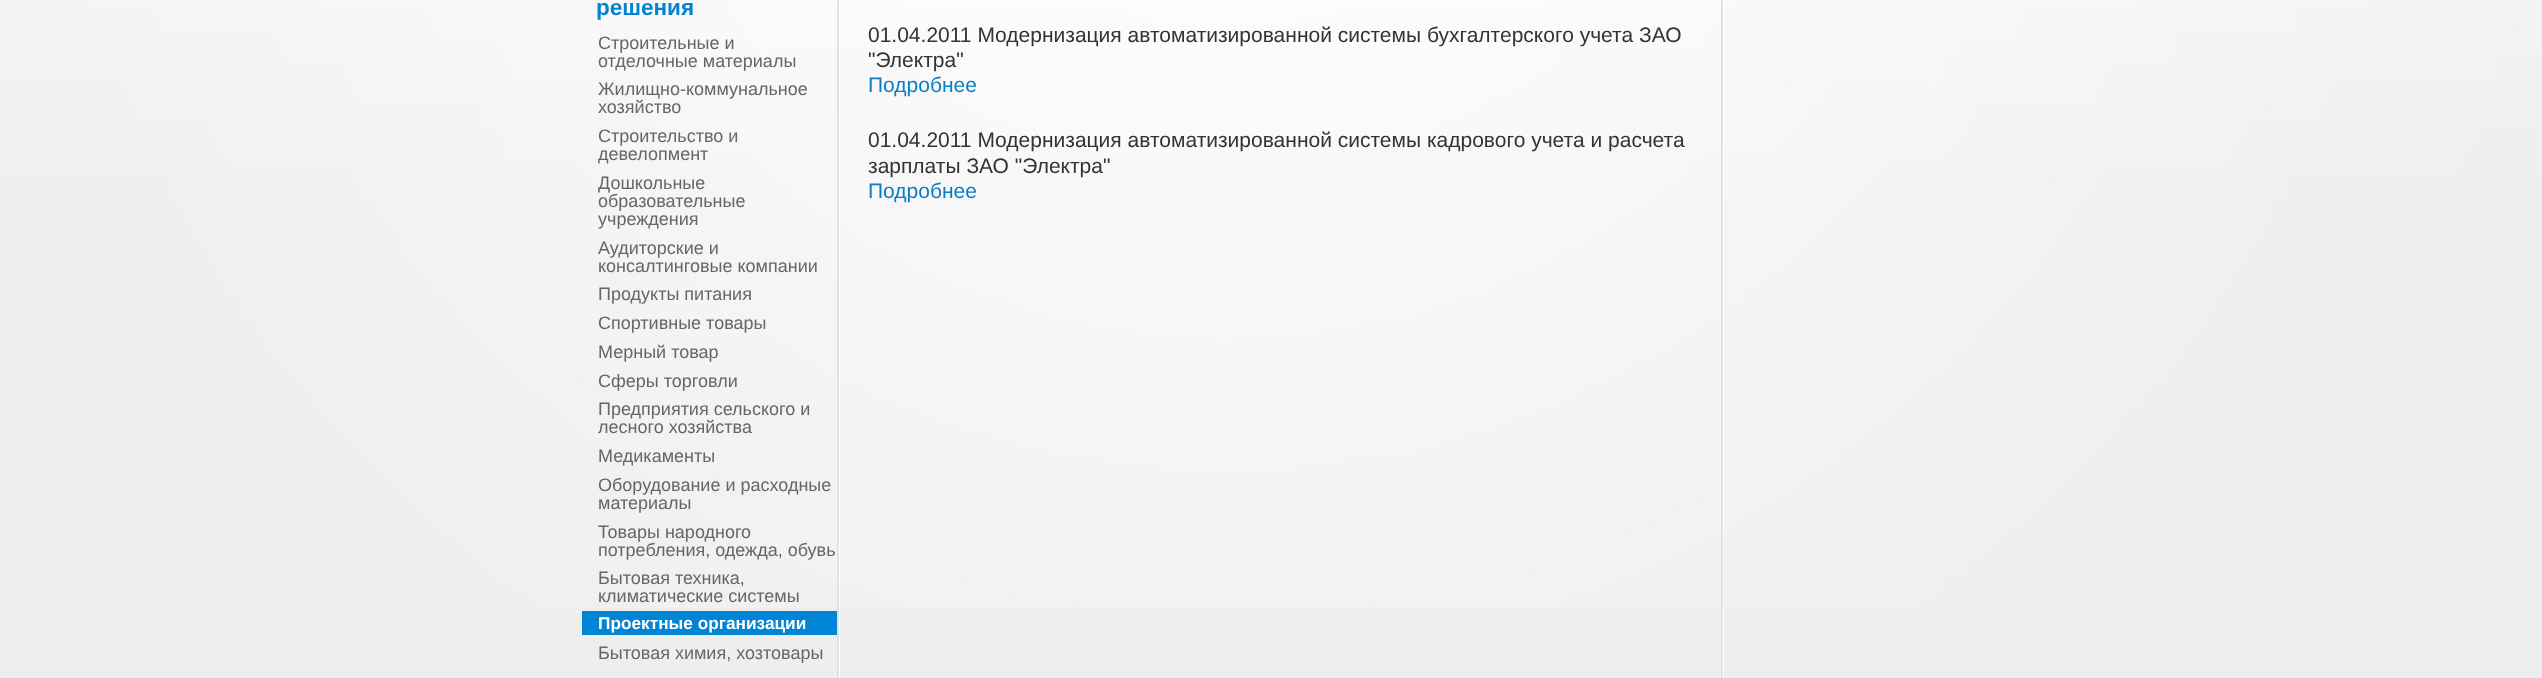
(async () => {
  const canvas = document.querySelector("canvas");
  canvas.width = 2542;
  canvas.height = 678;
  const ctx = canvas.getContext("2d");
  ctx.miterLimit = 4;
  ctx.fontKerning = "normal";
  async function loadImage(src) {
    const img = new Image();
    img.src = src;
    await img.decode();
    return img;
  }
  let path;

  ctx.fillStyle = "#eeeeee";
  ctx.fillRect(0, 0, 2542, 678);
  ctx.drawImage(await loadImage("img/1.png"), 0, 0, 2542, 608);
  ctx.fillStyle = "#ffffff";
  path = new Path2D("M584 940V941H840V-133H838V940Z");
  ctx.fill(path);
  for (const [x, y, w, h, color] of [
    [837, 0, 2, 678, "#e2e2e2"],
    [582, 611, 255, 24, "#0184d3"],
    [1723, 0, 1, 678, "#ffffff"],
    [1721, 0, 2, 678, "#e2e2e2"],
  ]) {
    ctx.fillStyle = color;
    ctx.fillRect(x, y, w, h);
  }
  ctx.font = "bold 22.5px Liberation Sans";
  ctx.fillStyle = "#0184d3";
  ctx.fillText("решения", 596, 15);
  ctx.font = "18px Liberation Sans";
  ctx.fillStyle = "#666666";
  for (const [text, x, y] of [
    ["Строительные и", 598, 49],
    ["отделочные материалы", 598, 67],
    ["Жилищно-коммунальное", 598, 95],
    ["хозяйство", 598, 113],
    ["Строительство и", 598, 142],
    ["девелопмент", 598, 160],
    ["Дошкольные", 598, 189],
    ["образовательные", 598, 207],
    ["учреждения", 598, 225],
    ["Аудиторские и", 598, 254],
    ["консалтинговые компании", 598, 272],
    ["Продукты питания", 598, 300],
    ["Спортивные товары", 598, 329],
    ["Мерный товар", 598, 358],
    ["Сферы торговли", 598, 387],
    ["Предприятия сельского и", 598, 415],
    ["лесного хозяйства", 598, 433],
    ["Медикаменты", 598, 462],
    ["Оборудование и расходные", 598, 491],
    ["материалы", 598, 509],
    ["Товары народного", 598, 538],
    ["потребления, одежда, обувь", 598, 556],
    ["Бытовая техника,", 598, 584],
    ["климатические системы", 598, 602],
  ]) {
    ctx.fillText(text, x, y);
  }
  ctx.font = "bold 17.25px Liberation Sans";
  ctx.fillStyle = "#ffffff";
  ctx.fillText("Проектные организации", 598, 629);
  ctx.font = "18px Liberation Sans";
  ctx.fillStyle = "#666666";
  ctx.fillText("Бытовая химия, хозтовары", 598, 659);
  ctx.font = "21px Liberation Sans";
  ctx.fillStyle = "#333333";
  ctx.fillText("01.04.2011 Модернизация автоматизированной системы бухгалтерского учета ЗАО", 868, 42);
  ctx.fillText("\"Электра\"", 868, 67);
  ctx.fillStyle = "#0b7ec3";
  ctx.fillText("Подробнее", 868, 92);
  ctx.fillStyle = "#333333";
  ctx.fillText("01.04.2011 Модернизация автоматизированной системы кадрового учета и расчета", 868, 147);
  ctx.fillText("зарплаты ЗАО \"Электра\"", 868, 173);
  ctx.fillStyle = "#0b7ec3";
  ctx.fillText("Подробнее", 868, 198);
})();
